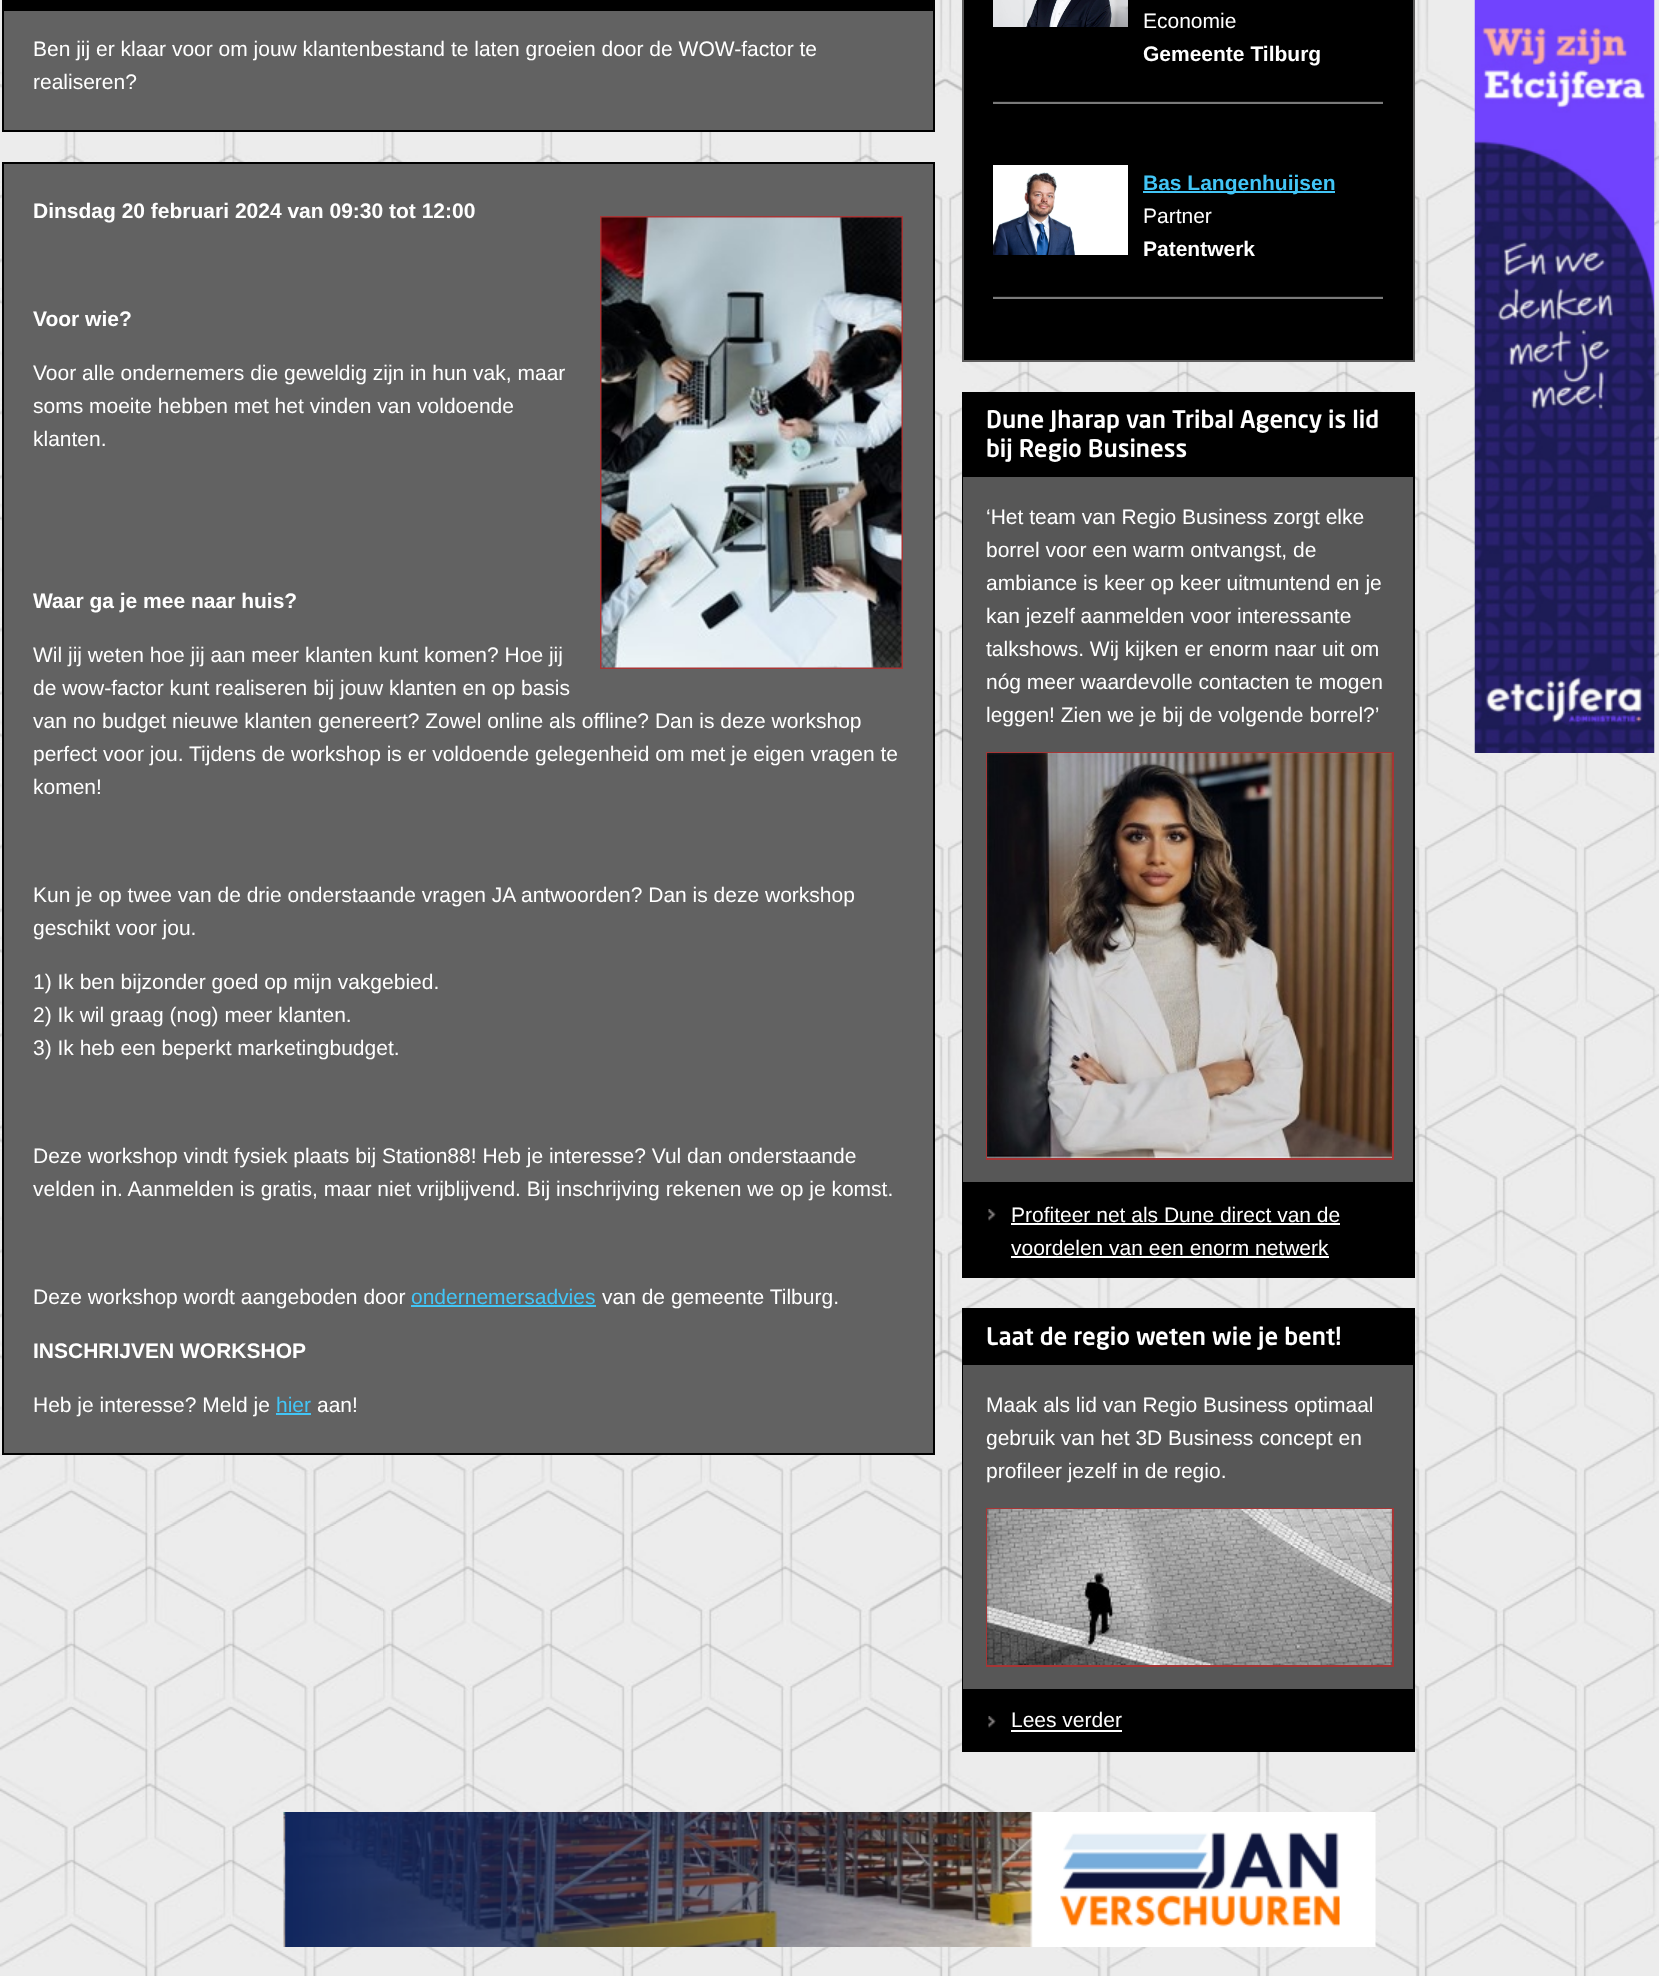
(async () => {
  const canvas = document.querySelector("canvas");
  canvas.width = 1659;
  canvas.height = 1976;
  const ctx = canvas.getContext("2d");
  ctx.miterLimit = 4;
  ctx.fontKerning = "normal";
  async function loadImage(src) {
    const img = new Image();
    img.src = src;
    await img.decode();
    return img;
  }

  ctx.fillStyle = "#ffffff";
  ctx.fillRect(0, 0, 1659, 1976);
  ctx.drawImage(await loadImage("img/1.png"), 0, 0, 1659, 1976);
  ctx.fillStyle = "#626262";
  ctx.fillRect(4, 11, 929, 119);
  ctx.strokeStyle = "#000000";
  ctx.lineWidth = 2;
  ctx.strokeRect(3, -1, 931, 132);
  ctx.fillStyle = "#000000";
  ctx.fillRect(4, 0, 929, 11);
  ctx.fillStyle = "#626262";
  ctx.beginPath();
  ctx.rect(3, 163, 931, 1291);
  ctx.fill();
  ctx.stroke();
  ctx.strokeStyle = "#a73535";
  ctx.strokeRect(601, 217, 301, 451);
  ctx.drawImage(await loadImage("img/2.png"), 601, 217, 301, 451);
  ctx.fillStyle = "#42c5f6";
  ctx.fillRect(411, 1305, 185, 2);
  ctx.fillRect(276, 1413, 35, 2);
  ctx.fillStyle = "#000000";
  ctx.beginPath();
  ctx.rect(963, -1, 451, 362);
  ctx.fill();
  ctx.strokeStyle = "#5d5c5c";
  ctx.stroke();
  ctx.drawImage(await loadImage("img/3.png"), 993, 0, 135, 27);
  ctx.fillStyle = "#141414";
  ctx.fillRect(993, 101, 390, 1);
  ctx.fillStyle = "#7a7a7a";
  ctx.fillRect(993, 102, 390, 2);
  ctx.drawImage(await loadImage("img/4.png"), 993, 165, 135, 90);
  for (const [x, y, w, h, color] of [
    [1143, 191, 192, 2, "#42c5f6"],
    [993, 296, 390, 1, "#141414"],
    [993, 297, 390, 2, "#7a7a7a"],
  ]) {
    ctx.fillStyle = color;
    ctx.fillRect(x, y, w, h);
  }
  ctx.strokeStyle = "#000000";
  ctx.strokeRect(963, 393, 451, 884);
  ctx.fillStyle = "#000000";
  ctx.fillRect(964, 394, 449, 83);
  ctx.fillStyle = "#575757";
  ctx.fillRect(963, 477, 450, 705);
  ctx.strokeStyle = "#a73535";
  ctx.strokeRect(987, 753, 406, 406);
  ctx.drawImage(await loadImage("img/5.png"), 987, 753, 405, 405);
  ctx.fillStyle = "#000000";
  ctx.fillRect(964, 1182, 449, 94);
  ctx.drawImage(await loadImage("img/6.png"), 988, 1209, 8, 12);
  ctx.fillStyle = "#ffffff";
  ctx.fillRect(1011, 1223, 329, 2);
  ctx.fillRect(1011, 1256, 318, 2);
  ctx.strokeStyle = "#000000";
  ctx.strokeRect(963, 1309, 451, 442);
  ctx.fillStyle = "#000000";
  ctx.fillRect(964, 1310, 449, 55);
  ctx.fillStyle = "#575757";
  ctx.fillRect(963, 1365, 450, 324);
  ctx.strokeStyle = "#a73535";
  ctx.strokeRect(987, 1509, 406, 157);
  ctx.drawImage(await loadImage("img/7.png"), 987, 1509, 405, 156);
  ctx.fillStyle = "#000000";
  ctx.fillRect(964, 1689, 449, 61);
  ctx.drawImage(await loadImage("img/6.png"), 988, 1716, 8, 12);
  ctx.fillStyle = "#ffffff";
  ctx.fillRect(1011, 1730, 111, 2);
  ctx.drawImage(await loadImage("img/8.png"), 1474, 0, 181, 753);
  ctx.drawImage(await loadImage("img/9.png"), 283, 1812, 1093, 135);
  ctx.font = "21px Liberation Sans";
  ctx.fillText("Ben jij er klaar voor om jouw klantenbestand te laten groeien door de WOW-factor te", 33, 56);
  ctx.fillText("realiseren?", 33, 89);
  ctx.font = "bold 21px Liberation Sans";
  ctx.fillText("Dinsdag 20 februari 2024 van 09:30 tot 12:00", 33, 218);
  ctx.fillText("Voor wie?", 33, 326);
  ctx.font = "21px Liberation Sans";
  for (const [text, x, y] of [
    ["Voor alle ondernemers die geweldig zijn in hun vak, maar", 33, 380],
    ["soms moeite hebben met het vinden van voldoende", 33, 413],
    ["klanten.", 33, 446],
  ]) {
    ctx.fillText(text, x, y);
  }
  ctx.font = "bold 21px Liberation Sans";
  ctx.fillText("Waar ga je mee naar huis?", 33, 608);
  ctx.font = "21px Liberation Sans";
  for (const [text, x, y] of [
    ["Wil jij weten hoe jij aan meer klanten kunt komen? Hoe jij", 33, 662],
    ["de wow-factor kunt realiseren bij jouw klanten en op basis", 33, 695],
    ["van no budget nieuwe klanten genereert? Zowel online als offline? Dan is deze workshop", 33, 728],
    ["perfect voor jou. Tijdens de workshop is er voldoende gelegenheid om met je eigen vragen te", 33, 761],
    ["komen!", 33, 794],
    ["Kun je op twee van de drie onderstaande vragen JA antwoorden? Dan is deze workshop", 33, 902],
    ["geschikt voor jou.", 33, 935],
    ["1) Ik ben bijzonder goed op mijn vakgebied.", 33, 989],
    ["2) Ik wil graag (nog) meer klanten.", 33, 1022],
    ["3) Ik heb een beperkt marketingbudget.", 33, 1055],
    ["Deze workshop vindt fysiek plaats bij Station88! Heb je interesse? Vul dan onderstaande", 33, 1163],
    ["velden in. Aanmelden is gratis, maar niet vrijblijvend. Bij inschrijving rekenen we op je komst.", 33, 1196],
    ["Deze workshop wordt aangeboden door", 33, 1304],
  ]) {
    ctx.fillText(text, x, y);
  }
  ctx.fillStyle = "#42c5f6";
  ctx.fillText("ondernemersadvies", 411, 1304);
  ctx.fillStyle = "#ffffff";
  ctx.fillText("van de gemeente Tilburg.", 602, 1304);
  ctx.font = "bold 21px Liberation Sans";
  ctx.fillText("INSCHRIJVEN WORKSHOP", 33, 1358);
  ctx.font = "21px Liberation Sans";
  ctx.fillText("Heb je interesse? Meld je", 33, 1412);
  ctx.fillStyle = "#42c5f6";
  ctx.fillText("hier", 276, 1412);
  ctx.fillStyle = "#ffffff";
  ctx.fillText("aan!", 317, 1412);
  ctx.fillText("Economie", 1143, 28);
  ctx.font = "bold 21px Liberation Sans";
  ctx.fillText("Gemeente Tilburg", 1143, 61);
  ctx.fillStyle = "#42c5f6";
  ctx.fillText("Bas Langenhuijsen", 1143, 190);
  ctx.font = "21px Liberation Sans";
  ctx.fillStyle = "#ffffff";
  ctx.fillText("Partner", 1143, 223);
  ctx.font = "bold 21px Liberation Sans";
  ctx.fillText("Patentwerk", 1143, 256);
  ctx.font = "500 24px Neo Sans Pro";
  ctx.fillText("Dune Jharap van Tribal Agency is lid", 986, 428);
  ctx.fillText("bij Regio Business", 986, 457);
  ctx.font = "21px Liberation Sans";
  for (const [text, x, y] of [
    ["‘Het team van Regio Business zorgt elke", 986, 524],
    ["borrel voor een warm ontvangst, de", 986, 557],
    ["ambiance is keer op keer uitmuntend en je", 986, 590],
    ["kan jezelf aanmelden voor interessante", 986, 623],
    ["talkshows. Wij kijken er enorm naar uit om", 986, 656],
    ["nóg meer waardevolle contacten te mogen", 986, 689],
    ["leggen! Zien we je bij de volgende borrel?’", 986, 722],
    ["Profiteer net als Dune direct van de", 1011, 1222],
    ["voordelen van een enorm netwerk", 1011, 1255],
  ]) {
    ctx.fillText(text, x, y);
  }
  ctx.font = "500 24px Neo Sans Pro";
  ctx.fillText("Laat de regio weten wie je bent!", 986, 1345);
  ctx.font = "21px Liberation Sans";
  for (const [text, x, y] of [
    ["Maak als lid van Regio Business optimaal", 986, 1412],
    ["gebruik van het 3D Business concept en", 986, 1445],
    ["profileer jezelf in de regio.", 986, 1478],
    ["Lees verder", 1011, 1727],
  ]) {
    ctx.fillText(text, x, y);
  }
})();
